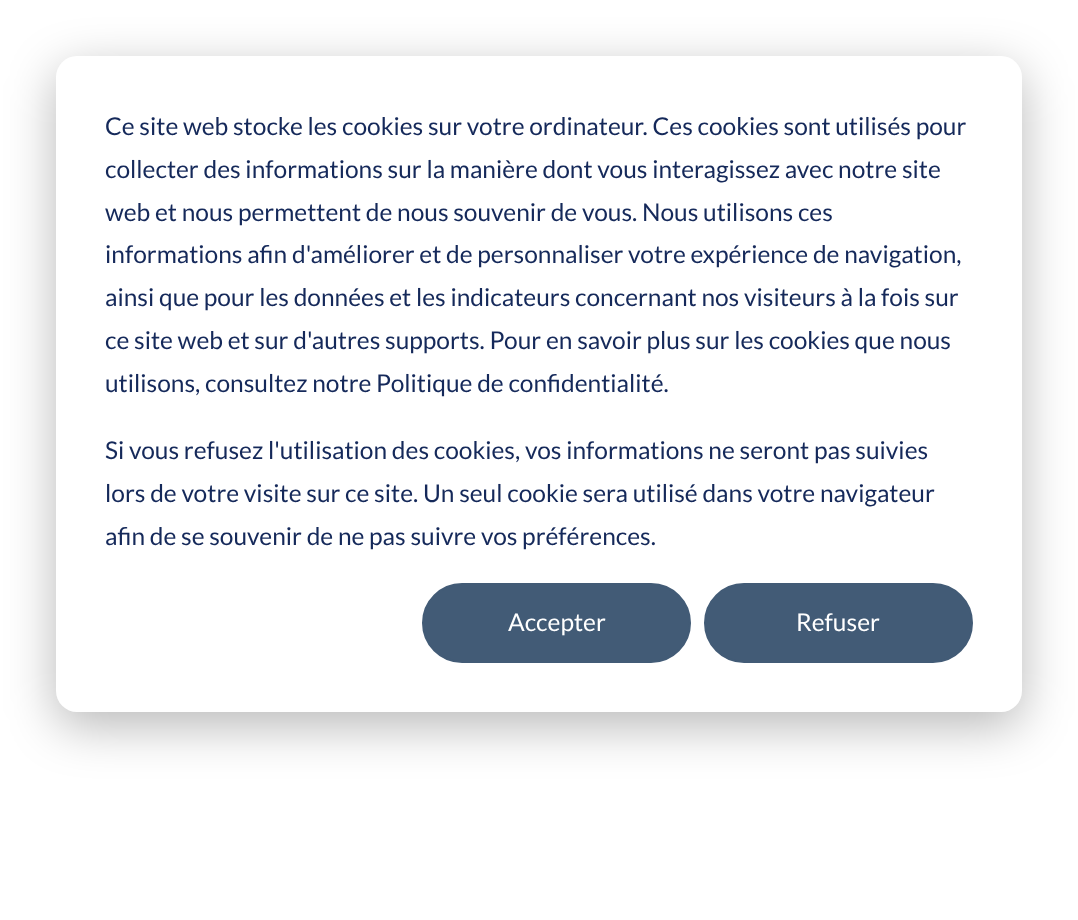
(async () => {
  const canvas = document.querySelector("canvas");
  canvas.width = 1078;
  canvas.height = 920;
  const ctx = canvas.getContext("2d");
  ctx.miterLimit = 4;
  ctx.fontKerning = "normal";

  ctx.fillStyle = "#ffffff";
  ctx.fillRect(0, 0, 1078, 920);
  ctx.fillStyle = "rgba(0, 0, 0, 0.28)";
  ctx.filter = "blur(24.5px)";
  ctx.beginPath();
  ctx.roundRect(56, 70, 966, 656, 21);
  ctx.fill();
  ctx.filter = "none";
  ctx.fillStyle = "#ffffff";
  ctx.beginPath();
  ctx.roundRect(56, 56, 966, 656, 21);
  ctx.fill();
  ctx.fillStyle = "#425b76";
  ctx.beginPath();
  ctx.roundRect(423, 584, 267, 78, 39);
  ctx.fill();
  ctx.strokeStyle = "#425b76";
  ctx.lineWidth = 2;
  ctx.stroke();
  ctx.beginPath();
  ctx.roundRect(705, 584, 267, 78, 39);
  ctx.fill();
  ctx.stroke();
  ctx.font = "24.5px Lato";
  ctx.fillStyle = "#15295a";
  for (const [text, x, y] of [
    ["Ce site web stocke les cookies sur votre ordinateur. Ces cookies sont utilisés pour", 105, 135],
    ["collecter des informations sur la manière dont vous interagissez avec notre site", 105, 178],
    ["web et nous permettent de nous souvenir de vous. Nous utilisons ces", 105, 221],
    ["informations afin d'améliorer et de personnaliser votre expérience de navigation,", 105, 263],
    ["ainsi que pour les données et les indicateurs concernant nos visiteurs à la fois sur", 105, 306],
    ["ce site web et sur d'autres supports. Pour en savoir plus sur les cookies que nous", 105, 349],
    ["utilisons, consultez notre Politique de confidentialité.", 105, 392],
    ["Si vous refusez l'utilisation des cookies, vos informations ne seront pas suivies", 105, 459],
    ["lors de votre visite sur ce site. Un seul cookie sera utilisé dans votre navigateur", 105, 502],
    ["afin de se souvenir de ne pas suivre vos préférences.", 105, 545],
  ]) {
    ctx.fillText(text, x, y);
  }
  ctx.fillStyle = "#ffffff";
  ctx.fillText("Accepter", 508, 631);
  ctx.fillText("Refuser", 796, 631);
})();
